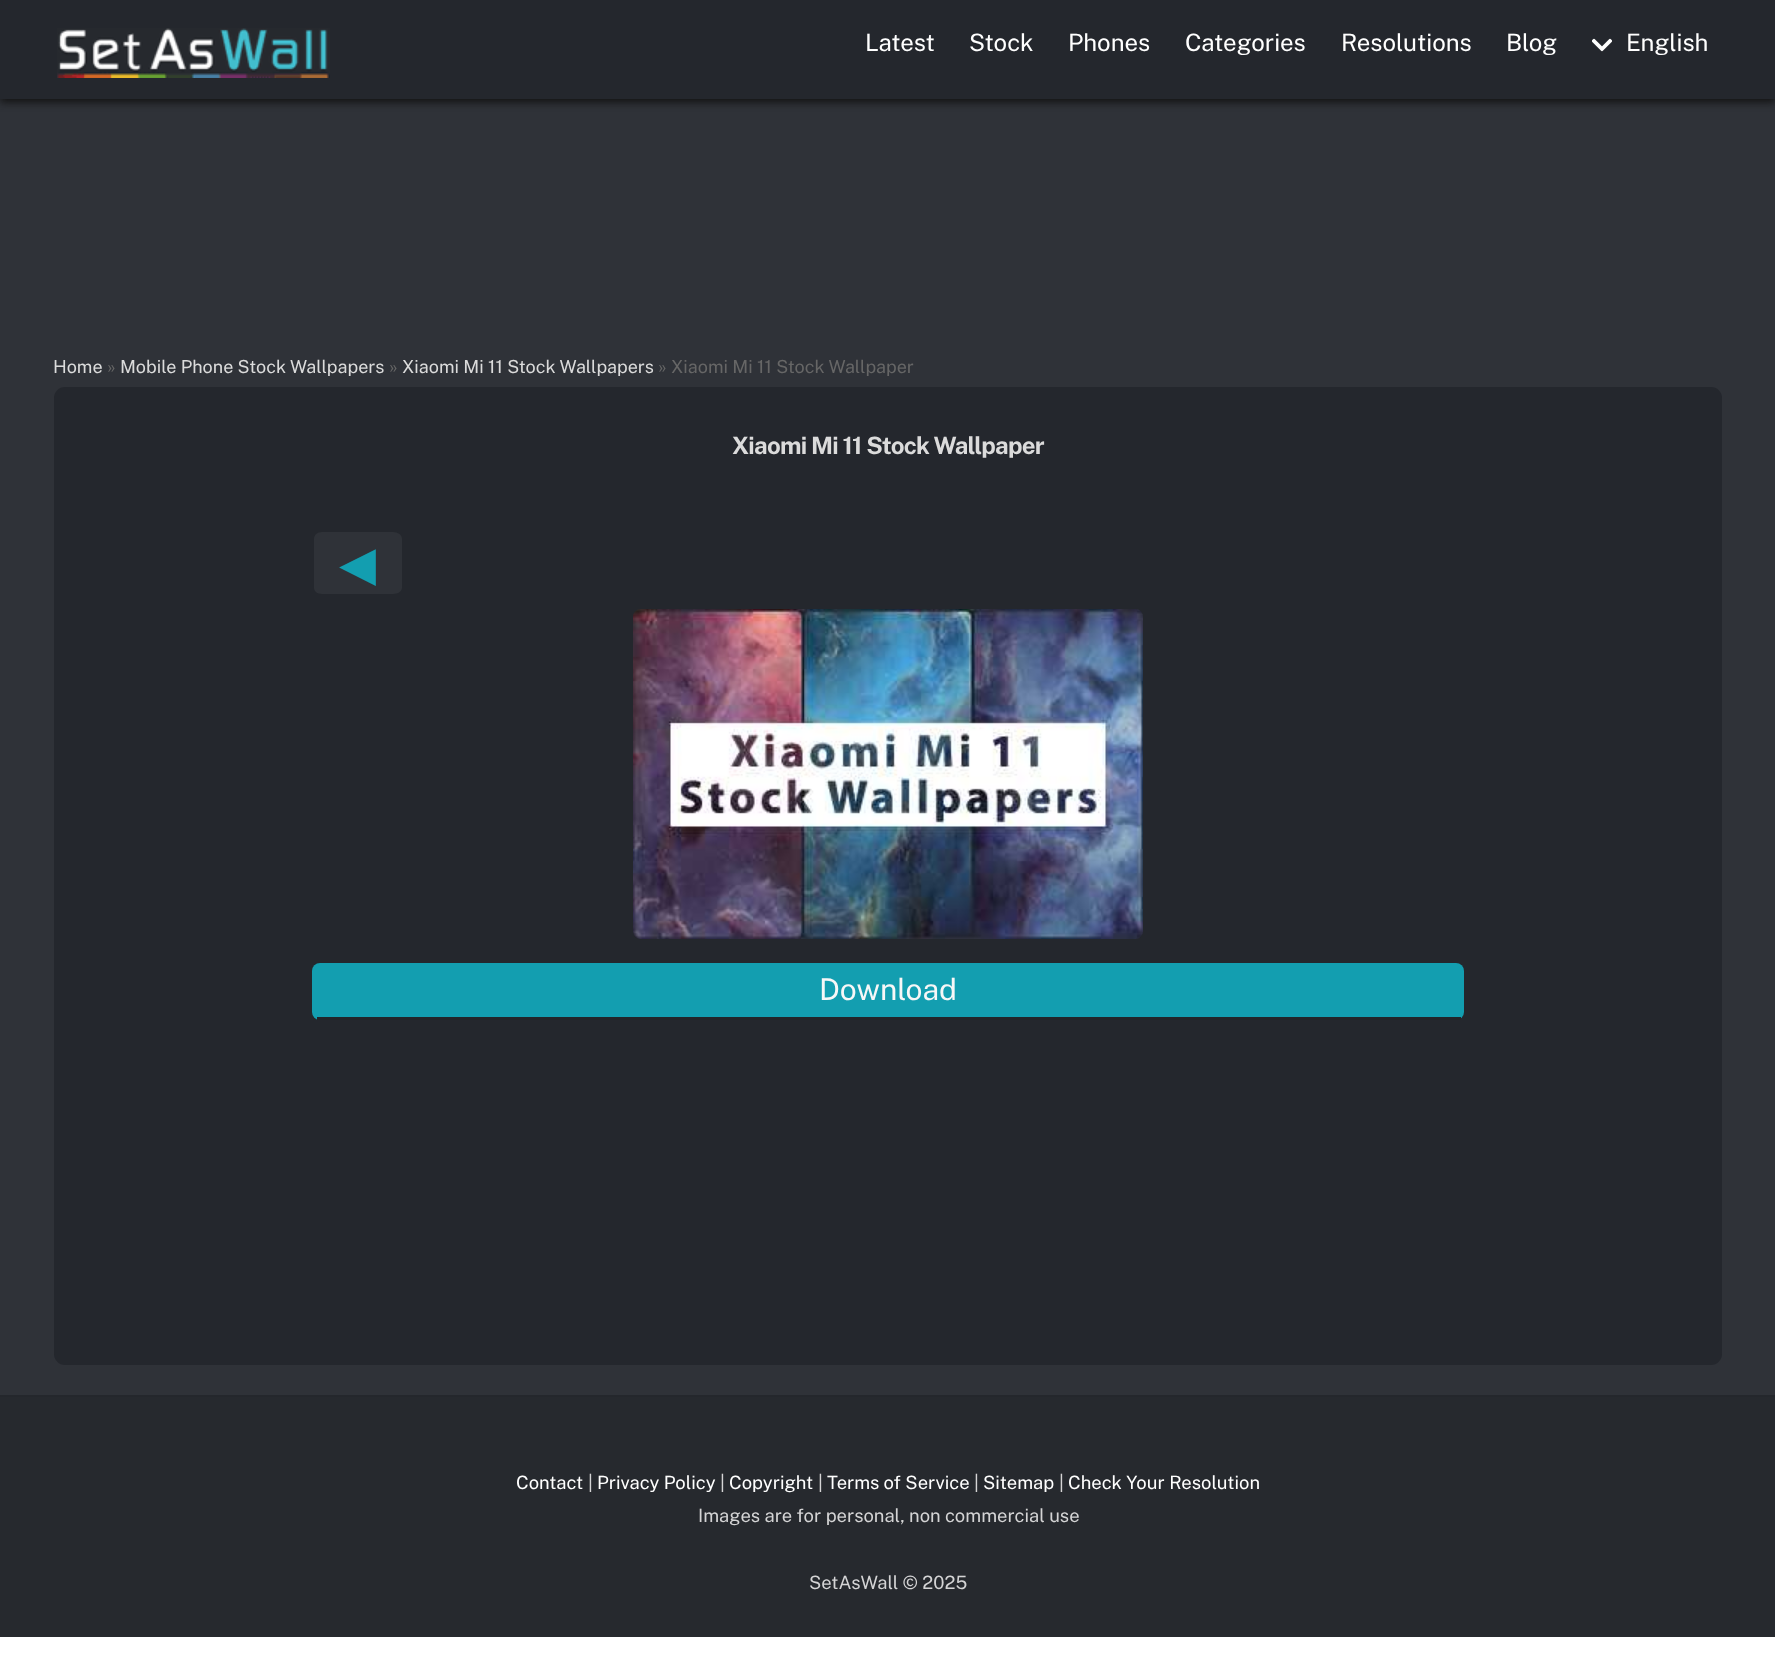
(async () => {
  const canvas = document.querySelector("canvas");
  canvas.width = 1775;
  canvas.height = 1677;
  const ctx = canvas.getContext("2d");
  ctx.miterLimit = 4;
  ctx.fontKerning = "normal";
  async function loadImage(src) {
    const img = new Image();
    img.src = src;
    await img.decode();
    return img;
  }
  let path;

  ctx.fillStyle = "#ffffff";
  ctx.fillRect(0, 0, 1775, 1677);
  ctx.fillStyle = "#2f3238";
  ctx.fillRect(0, 99, 1775, 1296);
  ctx.fillStyle = "#111111";
  ctx.filter = "blur(4px)";
  ctx.beginPath();
  ctx.rect(0, 3, 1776, 99);
  ctx.fill();
  ctx.filter = "none";
  ctx.fillStyle = "#24272d";
  ctx.fillRect(0, 0, 1775, 99);
  ctx.drawImage(await loadImage("img/1.png"), 57, 28, 273, 50);
  ctx.drawImage(await loadImage("img/2.png"), 1592, 38, 20, 14);
  ctx.beginPath();
  ctx.roundRect(54, 387, 1668, 978, 11);
  ctx.fill();
  ctx.fillStyle = "#2f3238";
  path = new Path2D("M322 532H393C398 532 402 535 402 539V588C402 591 398 594 393 594H322C317 594 314 591 314 588V539C314 535 317 532 322 532Z");
  ctx.fill(path);
  ctx.drawImage(await loadImage("img/3.png"), 633, 609, 510, 330);
  ctx.fillStyle = "#139eb0";
  ctx.beginPath();
  ctx.roundRect(312, 963, 1152, 57, 8);
  ctx.fill();
  for (const [x, y, w, h, color] of [
    [317, 1017, 1144, 3, "#222529"],
    [0, 1397, 1775, 240, "#26292e"],
    [0, 1395, 1775, 2, "#24272c"],
  ]) {
    ctx.fillStyle = color;
    ctx.fillRect(x, y, w, h);
  }
  ctx.font = "24px Public Sans";
  ctx.fillStyle = "#ffffff";
  for (const [text, x, y] of [
    ["Latest", 865, 51],
    ["Stock", 969, 51],
    ["Phones", 1068, 51],
    ["Categories", 1185, 51],
    ["Resolutions", 1341, 51],
    ["Blog", 1506, 51],
    ["English", 1626, 51],
  ]) {
    ctx.fillText(text, x, y);
  }
  ctx.font = "18px Public Sans";
  ctx.fillStyle = "#dbdbdb";
  ctx.fillText("Home", 53, 373);
  ctx.fillStyle = "#666666";
  ctx.fillText("»", 107, 373);
  ctx.fillStyle = "#dbdbdb";
  ctx.fillText("Mobile Phone Stock Wallpapers", 120, 373);
  ctx.fillStyle = "#666666";
  ctx.fillText("»", 389, 373);
  ctx.fillStyle = "#dbdbdb";
  ctx.fillText("Xiaomi Mi 11 Stock Wallpapers", 402, 373);
  ctx.fillStyle = "#666666";
  ctx.fillText("» Xiaomi Mi 11 Stock Wallpaper", 658, 373);
  ctx.letterSpacing = "-0.75px";
  ctx.font = "bold 24px Public Sans";
  ctx.fillStyle = "#dbdbdb";
  ctx.fillText("Xiaomi Mi 11 Stock Wallpaper", 732, 454);
  ctx.letterSpacing = "0px";
  ctx.font = "48px DejaVu Sans";
  ctx.fillStyle = "#139eb0";
  ctx.fillText("◀", 339, 580);
  ctx.font = "30px Public Sans";
  ctx.fillStyle = "#f7f7f7";
  ctx.fillText("Download", 819, 1000);
  ctx.font = "18.4px Public Sans";
  ctx.fillStyle = "#ffffff";
  ctx.fillText("Contact", 516, 1489);
  ctx.fillStyle = "#d4d4d5";
  ctx.fillText("|", 588, 1489);
  ctx.fillStyle = "#ffffff";
  ctx.fillText("Privacy Policy", 597, 1489);
  ctx.fillStyle = "#d4d4d5";
  ctx.fillText("|", 720, 1489);
  ctx.fillStyle = "#ffffff";
  ctx.fillText("Copyright", 729, 1489);
  ctx.fillStyle = "#d4d4d5";
  ctx.fillText("|", 818, 1489);
  ctx.fillStyle = "#ffffff";
  ctx.fillText("Terms of Service", 827, 1489);
  ctx.fillStyle = "#d4d4d5";
  ctx.fillText("|", 974, 1489);
  ctx.fillStyle = "#ffffff";
  ctx.fillText("Sitemap", 983, 1489);
  ctx.fillStyle = "#d4d4d5";
  ctx.fillText("|", 1059, 1489);
  ctx.fillStyle = "#ffffff";
  ctx.fillText("Check Your Resolution", 1068, 1489);
  ctx.fillStyle = "#d4d4d5";
  ctx.fillText("Images are for personal, non commercial use", 698, 1522);
  ctx.fillText("SetAsWall © 2025", 809, 1589);
})();
